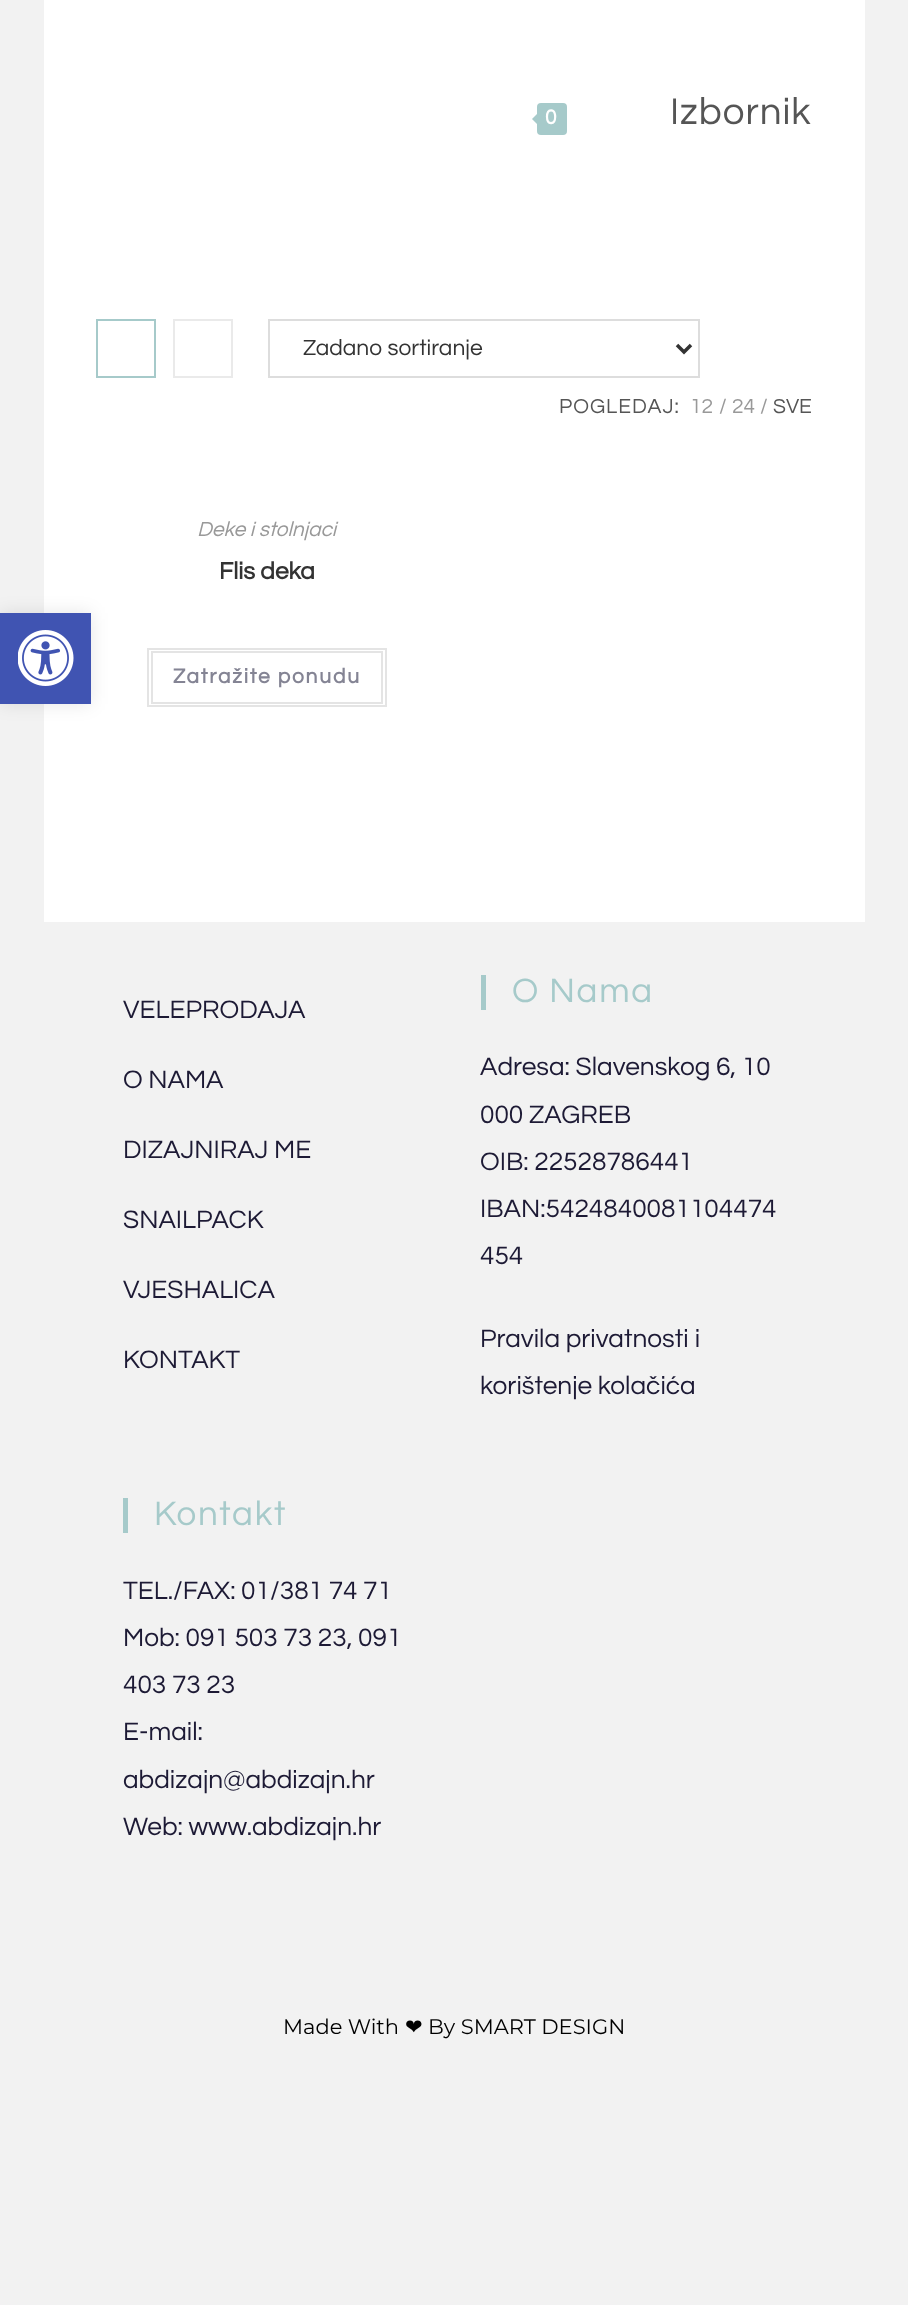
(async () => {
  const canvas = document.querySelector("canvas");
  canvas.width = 908;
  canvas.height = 2305;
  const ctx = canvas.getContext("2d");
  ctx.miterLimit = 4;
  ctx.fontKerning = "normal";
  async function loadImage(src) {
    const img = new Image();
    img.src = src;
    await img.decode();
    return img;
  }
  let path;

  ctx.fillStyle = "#f2f2f2";
  ctx.fillRect(0, 0, 908, 2305);
  ctx.fillStyle = "#ffffff";
  ctx.fillRect(44, 0, 821, 922);
  ctx.fillStyle = "rgba(0, 0, 0, 0.1)";
  ctx.filter = "blur(9px)";
  ctx.beginPath();
  ctx.rect(0, 613, 91, 91);
  ctx.fill();
  ctx.filter = "none";
  ctx.fillStyle = "#4054b2";
  ctx.fillRect(0, 613, 91, 91);
  ctx.drawImage(await loadImage("img/1.png"), 18, 630, 56, 56);
  ctx.fillStyle = "#a6caca";
  ctx.beginPath();
  ctx.roundRect(537, 103, 30, 32, 4);
  ctx.fill();
  path = new Path2D("M541 110V128L532 119Z");
  ctx.fill(path);
  ctx.strokeStyle = "#a6caca";
  ctx.lineWidth = 2;
  ctx.strokeRect(97, 320, 58, 57);
  ctx.strokeStyle = "#eaeaea";
  ctx.strokeRect(174, 320, 58, 57);
  ctx.strokeStyle = "#dddddd";
  ctx.strokeRect(269, 320, 430, 57);
  path = new Path2D("M677 345L684 352L691 345");
  ctx.strokeStyle = "#333333";
  ctx.lineWidth = 3.5;
  ctx.stroke(path);
  ctx.strokeStyle = "#e4e4e4";
  ctx.lineWidth = 2;
  ctx.strokeRect(148, 649, 238, 57);
  ctx.strokeRect(152, 652, 230, 51);
  ctx.fillRect(481, 975, 5, 35);
  ctx.fillRect(123, 1498, 5, 35);
  ctx.letterSpacing = "1px";
  ctx.font = "bold 21px Questrial";
  ctx.fillStyle = "#ffffff";
  ctx.fillText("0", 545, 124);
  ctx.font = "38.5px Questrial";
  ctx.fillStyle = "#555555";
  ctx.fillText("Izbornik", 670, 124);
  ctx.letterSpacing = "0px";
  ctx.font = "22.75px Questrial";
  ctx.fillStyle = "#333333";
  ctx.fillText("Zadano sortiranje", 303, 355);
  ctx.letterSpacing = "1px";
  ctx.font = "21px Questrial";
  ctx.fillStyle = "#555555";
  ctx.fillText("POGLEDAJ:", 559, 413);
  ctx.letterSpacing = "0px";
  ctx.fillStyle = "#999999";
  for (const [text, x, y] of [
    ["12", 690, 413],
    ["/", 719, 413],
    ["24", 732, 413],
    ["/", 760, 413],
  ]) {
    ctx.fillText(text, x, y);
  }
  ctx.fillStyle = "#555555";
  ctx.fillText("SVE", 773, 413);
  ctx.font = "italic 21px Questrial";
  ctx.fillStyle = "#999999";
  ctx.fillText("Deke i stolnjaci", 197, 536);
  ctx.font = "bold 24.5px Questrial";
  ctx.fillStyle = "#333333";
  ctx.fillText("Flis deka", 219, 579);
  ctx.letterSpacing = "1.75px";
  ctx.font = "bold 21px Questrial";
  ctx.fillStyle = "#848494";
  ctx.fillText("Zatražite ponudu", 173, 683);
  ctx.letterSpacing = "0px";
  ctx.font = "26.25px Questrial";
  ctx.fillStyle = "#1d1a35";
  for (const [text, x, y] of [
    ["VELEPRODAJA", 123, 1018],
    ["O NAMA", 123, 1088],
    ["DIZAJNIRAJ ME", 123, 1158],
    ["SNAILPACK", 123, 1228],
    ["VJESHALICA", 123, 1298],
    ["KONTAKT", 123, 1368],
  ]) {
    ctx.fillText(text, x, y);
  }
  ctx.letterSpacing = "1.75px";
  ctx.font = "35px Questrial";
  ctx.fillStyle = "#a6caca";
  ctx.fillText("O Nama", 512, 1002);
  ctx.letterSpacing = "0px";
  ctx.font = "26.25px Questrial";
  ctx.fillStyle = "#1d1a35";
  for (const [text, x, y] of [
    ["Adresa: Slavenskog 6, 10", 480, 1075],
    ["000 ZAGREB", 480, 1123],
    ["OIB: 22528786441", 480, 1170],
    ["IBAN:5424840081104474", 480, 1217],
    ["454", 480, 1264],
    ["Pravila privatnosti i", 480, 1347],
    ["korištenje kolačića", 480, 1394],
  ]) {
    ctx.fillText(text, x, y);
  }
  ctx.letterSpacing = "1.75px";
  ctx.font = "35px Questrial";
  ctx.fillStyle = "#a6caca";
  ctx.fillText("Kontakt", 154, 1525);
  ctx.letterSpacing = "0px";
  ctx.font = "26.25px Questrial";
  ctx.fillStyle = "#1d1a35";
  for (const [text, x, y] of [
    ["TEL./FAX: 01/381 74 71", 123, 1599],
    ["Mob: 091 503 73 23, 091", 123, 1646],
    ["403 73 23", 123, 1693],
    ["E-mail:", 123, 1740],
    ["abdizajn@abdizajn.hr", 123, 1788],
    ["Web: www.abdizajn.hr", 123, 1835],
  ]) {
    ctx.fillText(text, x, y);
  }
  ctx.font = "21px Montserrat";
  ctx.fillStyle = "#000000";
  ctx.fillText("Made With", 283, 2034);
  ctx.font = "21px DejaVu Sans";
  ctx.fillText("❤", 405, 2034);
  ctx.font = "21px Montserrat";
  ctx.fillText("By SMART DESIGN", 428, 2034);
})();
